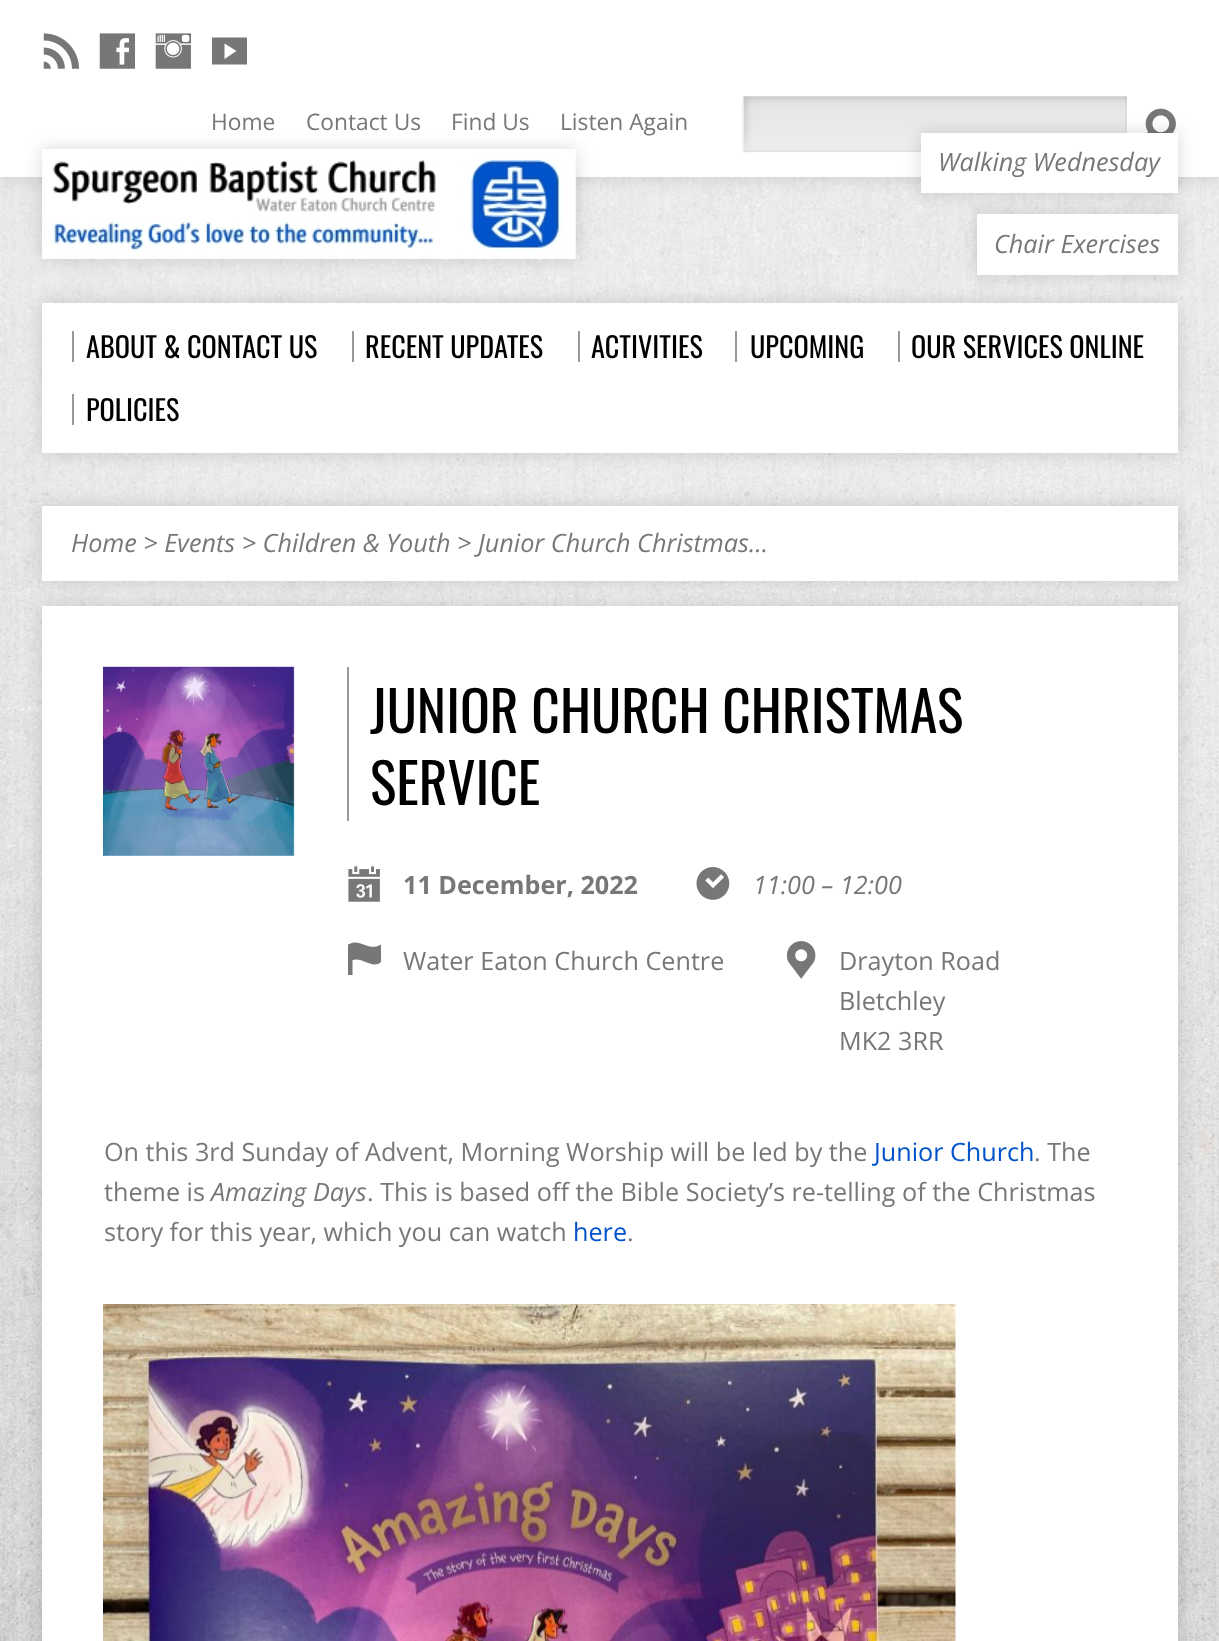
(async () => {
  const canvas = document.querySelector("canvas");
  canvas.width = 1219;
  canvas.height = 1641;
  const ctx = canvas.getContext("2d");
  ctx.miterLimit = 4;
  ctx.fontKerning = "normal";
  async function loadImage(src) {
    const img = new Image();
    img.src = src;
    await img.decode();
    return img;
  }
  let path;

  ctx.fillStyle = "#ffffff";
  ctx.fillRect(0, 0, 1219, 1641);
  ctx.drawImage(await loadImage("img/1.png"), 0, 177, 1219, 1464);
  ctx.fillStyle = "rgba(0, 0, 0, 0.15)";
  ctx.filter = "blur(9px)";
  ctx.beginPath();
  ctx.rect(0, 0, 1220, 177);
  ctx.fill();
  ctx.filter = "none";
  ctx.fillStyle = "#ffffff";
  ctx.fillRect(0, 0, 1219, 177);
  ctx.drawImage(await loadImage("img/2.png"), 43, 33, 36, 36);
  ctx.drawImage(await loadImage("img/3.png"), 99, 33, 37, 36);
  ctx.drawImage(await loadImage("img/4.png"), 155, 33, 37, 36);
  ctx.fillStyle = "#777777";
  path = new Path2D("M247 64.5H212V37.5H247ZM224.5 59L236.5 51L224.5 43.5Z");
  ctx.fill(path);
  ctx.drawImage(await loadImage("img/5.png"), 743, 96, 384, 57);
  ctx.fillStyle = "rgba(150, 150, 150, 0.1)";
  path = new Path2D("M1127 96V152L1125 150V96Z");
  ctx.fill(path);
  path = new Path2D("M1127 152H742L744 150H1125Z");
  ctx.fill(path);
  path = new Path2D("M742 152V96H744V150Z");
  ctx.fill(path);
  ctx.drawImage(await loadImage("img/6.png"), 1145, 108, 31, 25);
  ctx.save();
  path = new Path2D("M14 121H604V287H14ZM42 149H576V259H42Z");
  ctx.clip(path, "evenodd");
  ctx.fillStyle = "rgba(0, 0, 0, 0.15)";
  ctx.filter = "blur(9px)";
  ctx.beginPath();
  ctx.rect(42, 149, 534, 110);
  ctx.fill();
  ctx.filter = "none";
  ctx.restore();
  ctx.drawImage(await loadImage("img/7.png"), 42, 159, 534, 100);
  ctx.fillStyle = "rgba(0, 0, 0, 0.15)";
  ctx.filter = "blur(9px)";
  ctx.beginPath();
  ctx.rect(921, 133, 257, 60);
  ctx.fill();
  ctx.filter = "none";
  ctx.fillStyle = "#ffffff";
  ctx.fillRect(921, 133, 257, 60);
  ctx.fillStyle = "rgba(0, 0, 0, 0.15)";
  ctx.filter = "blur(9px)";
  ctx.beginPath();
  ctx.rect(977, 214, 201, 61);
  ctx.fill();
  ctx.filter = "none";
  ctx.fillStyle = "#ffffff";
  ctx.fillRect(977, 214, 201, 61);
  ctx.fillStyle = "rgba(0, 0, 0, 0.15)";
  ctx.filter = "blur(9px)";
  ctx.beginPath();
  ctx.rect(42, 303, 1136, 150);
  ctx.fill();
  ctx.filter = "none";
  for (const [x, y, w, h, color] of [
    [42, 303, 1136, 150, "#ffffff"],
    [72, 331, 2, 31, "#999999"],
    [352, 331, 2, 31, "#999999"],
    [578, 331, 2, 31, "#999999"],
    [735, 331, 2, 31, "#999999"],
    [898, 331, 2, 31, "#999999"],
    [72, 394, 2, 31, "#999999"],
  ]) {
    ctx.fillStyle = color;
    ctx.fillRect(x, y, w, h);
  }
  ctx.fillStyle = "rgba(0, 0, 0, 0.15)";
  ctx.filter = "blur(9px)";
  ctx.beginPath();
  ctx.rect(42, 506, 1136, 75);
  ctx.fill();
  ctx.filter = "none";
  ctx.fillStyle = "#ffffff";
  ctx.fillRect(42, 506, 1136, 75);
  ctx.fillStyle = "rgba(0, 0, 0, 0.15)";
  ctx.filter = "blur(9px)";
  ctx.beginPath();
  ctx.rect(42, 606, 1136, 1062);
  ctx.fill();
  ctx.filter = "none";
  ctx.fillStyle = "#ffffff";
  ctx.fillRect(42, 606, 1136, 1035);
  ctx.drawImage(await loadImage("img/8.png"), 103, 666, 192, 190);
  ctx.fillStyle = "#999999";
  ctx.fillRect(347, 667, 2, 154);
  ctx.drawImage(await loadImage("img/9.png"), 348, 866, 32, 36);
  ctx.drawImage(await loadImage("img/10.png"), 696, 867, 34, 33);
  ctx.fillStyle = "#777777";
  path = new Path2D("M348 944.5V975H352.5V960C355 959.5 357.5 959 360 960C367 961.5 374.5 968 381 962V944.5C368.5 952.5 360.5 937 348 944.5Z");
  ctx.fill(path);
  ctx.drawImage(await loadImage("img/11.png"), 786, 941, 30, 38);
  ctx.drawImage(await loadImage("img/12.png"), 103, 1304, 853, 337);
  ctx.font = "22.75px Open Sans";
  for (const [text, x, y] of [
    ["Home", 211, 130],
    ["Contact Us", 306, 130],
    ["Find Us", 451, 130],
    ["Listen Again", 560, 130],
  ]) {
    ctx.fillText(text, x, y);
  }
  ctx.font = "italic 25.2px Open Sans";
  ctx.fillText("Walking Wednesday", 938, 171);
  ctx.fillText("Chair Exercises", 994, 253);
  ctx.font = "28.25px Oswald";
  ctx.fillStyle = "#000000";
  for (const [text, x, y] of [
    ["ABOUT & CONTACT US", 86, 358],
    ["RECENT UPDATES", 365, 358],
    ["ACTIVITIES", 591, 358],
    ["UPCOMING", 750, 358],
    ["OUR SERVICES ONLINE", 911, 358],
    ["POLICIES", 86, 421],
  ]) {
    ctx.fillText(text, x, y);
  }
  ctx.font = "italic 25.2px Open Sans";
  ctx.fillStyle = "#777777";
  ctx.fillText("Home > Events > Children & Youth > Junior Church Christmas…", 71, 552);
  ctx.font = "55.5px Oswald";
  ctx.fillStyle = "#000000";
  ctx.fillText("JUNIOR CHURCH CHRISTMAS", 370, 733);
  ctx.fillText("SERVICE", 370, 805);
  ctx.font = "bold 25.2px Open Sans";
  ctx.fillStyle = "#777777";
  ctx.fillText("11 December, 2022", 403, 894);
  ctx.font = "italic 25.2px Open Sans";
  ctx.fillText("11:00 – 12:00", 753, 894);
  ctx.font = "25.2px Open Sans";
  for (const [text, x, y] of [
    ["Water Eaton Church Centre", 403, 970],
    ["Drayton Road", 839, 970],
    ["Bletchley", 839, 1010],
    ["MK2 3RR", 839, 1050],
    ["On this 3rd Sunday of Advent, Morning Worship will be led by the", 104, 1161],
  ]) {
    ctx.fillText(text, x, y);
  }
  ctx.fillStyle = "#0053ca";
  ctx.fillText("Junior Church", 874, 1161);
  ctx.fillStyle = "#777777";
  ctx.fillText(". The", 1034, 1161);
  ctx.fillText("theme is", 104, 1201);
  ctx.font = "italic 25.2px Open Sans";
  ctx.fillText("Amazing Days", 211, 1201);
  ctx.font = "25.2px Open Sans";
  ctx.fillText(". This is based off the Bible Society’s re-telling of the Christmas", 367, 1201);
  ctx.fillText("story for this year, which you can watch", 104, 1241);
  ctx.fillStyle = "#0053ca";
  ctx.fillText("here", 573, 1241);
  ctx.fillStyle = "#777777";
  ctx.fillText(".", 627, 1241);
})();
